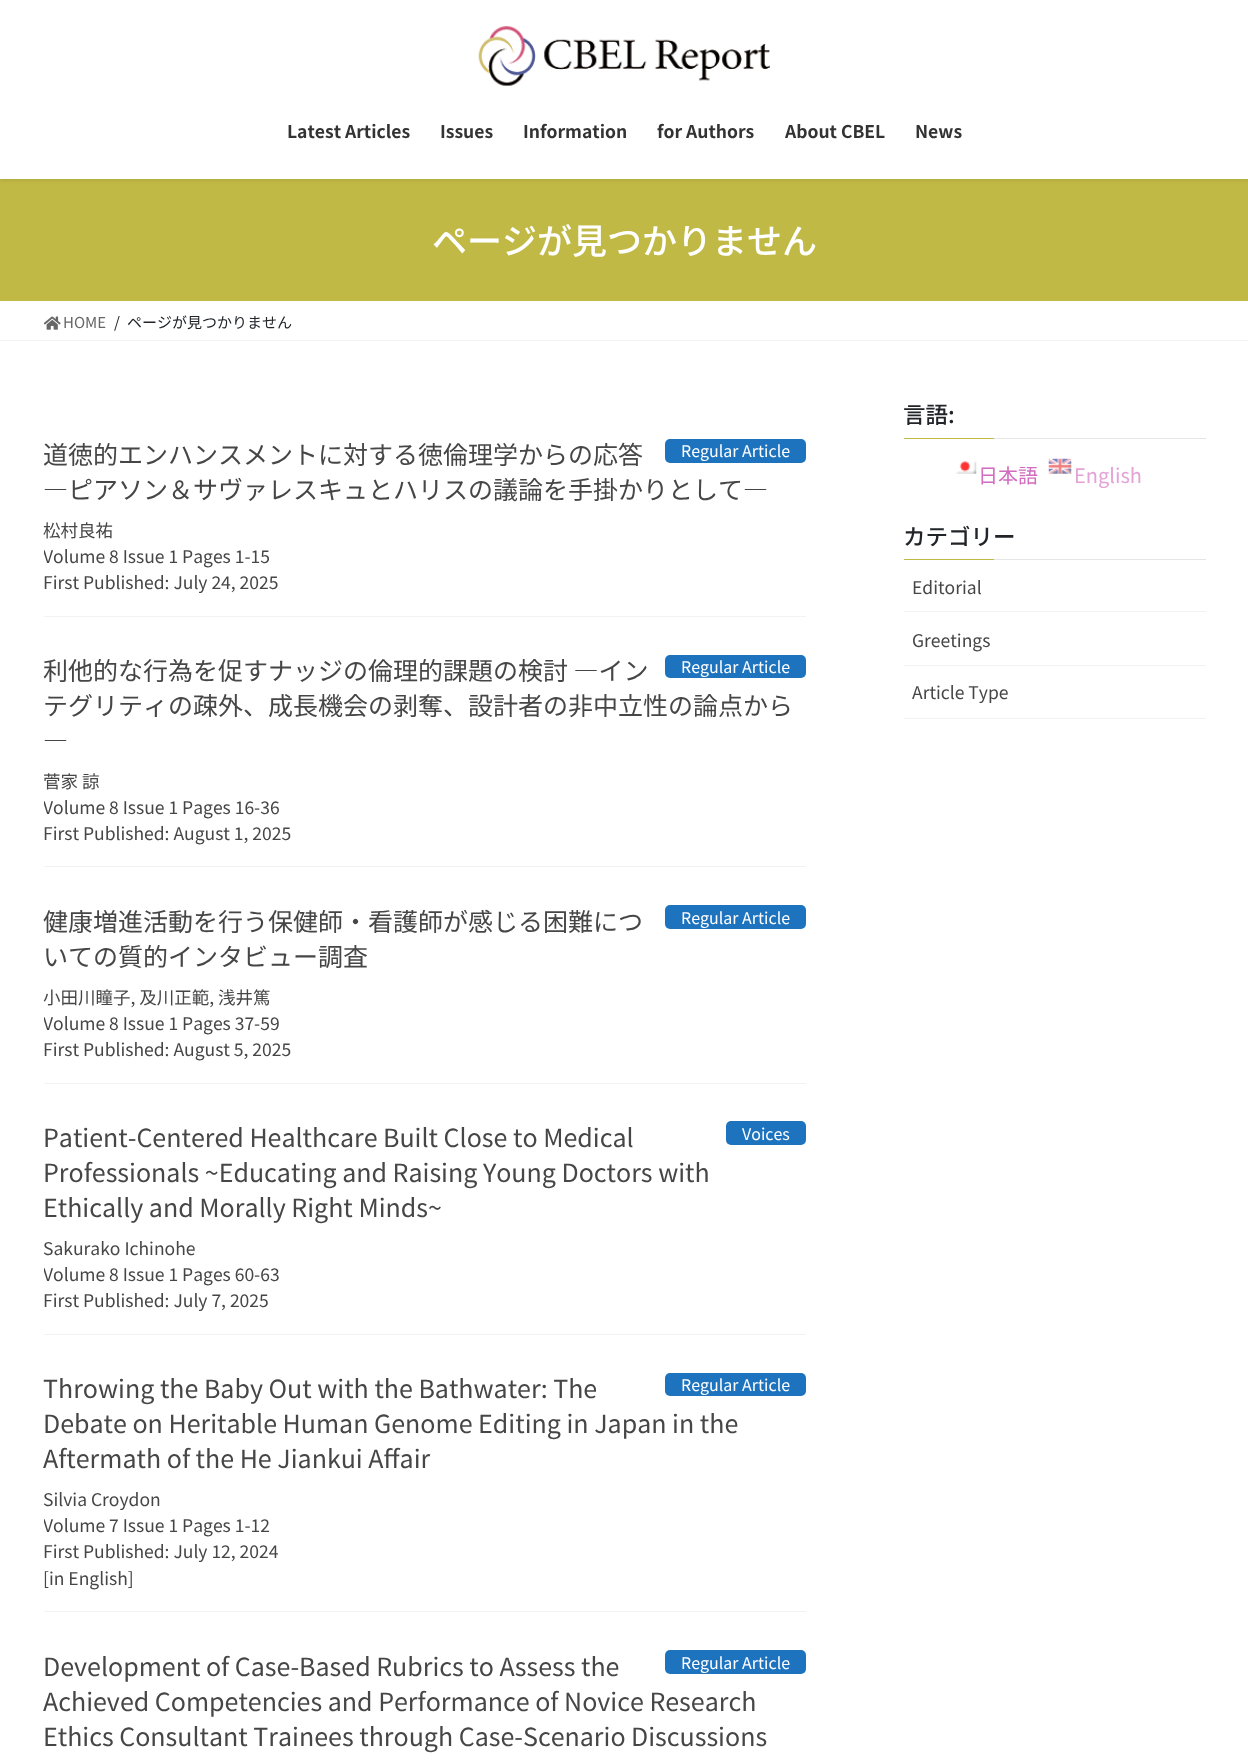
(async () => {
  const canvas = document.querySelector("canvas");
  canvas.width = 1248;
  canvas.height = 1761;
  const ctx = canvas.getContext("2d");
  ctx.miterLimit = 4;
  ctx.fontKerning = "none";
  async function loadImage(src) {
    const img = new Image();
    img.src = src;
    await img.decode();
    return img;
  }

  ctx.fillStyle = "#ffffff";
  ctx.fillRect(0, 0, 1248, 1761);
  ctx.fillStyle = "#c1b945";
  ctx.fillRect(0, 179, 1248, 122);
  ctx.fillStyle = "rgba(0, 0, 0, 0.1)";
  ctx.filter = "blur(2px)";
  ctx.beginPath();
  ctx.rect(0, 1, 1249, 179);
  ctx.fill();
  ctx.filter = "none";
  ctx.fillStyle = "#ffffff";
  ctx.fillRect(0, 0, 1248, 179);
  ctx.drawImage(await loadImage("img/1.png"), 478, 26, 292, 60);
  ctx.fillStyle = "#f2f2f2";
  ctx.fillRect(0, 340, 1248, 1);
  ctx.drawImage(await loadImage("img/2.png"), 43, 316, 18, 14);
  ctx.fillRect(44, 616, 762, 1);
  ctx.fillStyle = "#1e73be";
  ctx.beginPath();
  ctx.roundRect(665, 439, 141, 24, 5);
  ctx.fill();
  ctx.fillStyle = "#f2f2f2";
  ctx.fillRect(44, 866, 762, 1);
  ctx.fillStyle = "#1e73be";
  ctx.beginPath();
  ctx.roundRect(665, 655, 141, 23, 5);
  ctx.fill();
  ctx.fillStyle = "#f2f2f2";
  ctx.fillRect(44, 1083, 762, 1);
  ctx.fillStyle = "#1e73be";
  ctx.beginPath();
  ctx.roundRect(665, 905, 141, 24, 5);
  ctx.fill();
  ctx.fillStyle = "#f2f2f2";
  ctx.fillRect(44, 1334, 762, 1);
  ctx.fillStyle = "#1e73be";
  ctx.beginPath();
  ctx.roundRect(726, 1121, 80, 24, 5);
  ctx.fill();
  ctx.fillStyle = "#f2f2f2";
  ctx.fillRect(44, 1611, 762, 1);
  ctx.fillStyle = "#1e73be";
  ctx.beginPath();
  ctx.roundRect(665, 1373, 141, 23, 5);
  ctx.fill();
  ctx.beginPath();
  ctx.roundRect(665, 1650, 141, 24, 5);
  ctx.fill();
  ctx.fillStyle = "#e6e6e6";
  ctx.fillRect(994, 438, 212, 1);
  ctx.fillStyle = "#c1b945";
  ctx.fillRect(904, 438, 90, 1);
  ctx.drawImage(await loadImage("img/3.png"), 956, 461, 21, 13);
  ctx.drawImage(await loadImage("img/4.png"), 1048, 458, 24, 16);
  for (const [x, y, w, h, color] of [
    [994, 559, 212, 1, "#e6e6e6"],
    [904, 559, 90, 1, "#c1b945"],
    [904, 611, 302, 1, "#f2f2f2"],
    [904, 665, 302, 1, "#f2f2f2"],
    [904, 718, 302, 1, "#f2f2f2"],
  ]) {
    ctx.fillStyle = color;
    ctx.fillRect(x, y, w, h);
  }
  ctx.font = "bold 17.5px Noto Sans JP";
  ctx.fillStyle = "#333333";
  for (const [text, x, y] of [
    ["Latest Articles", 287, 138],
    ["Issues", 440, 138],
    ["Information", 523, 138],
    ["for Authors", 657, 138],
    ["About CBEL", 785, 138],
    ["News", 915, 138],
  ]) {
    ctx.fillText(text, x, y);
  }
  ctx.font = "500 35px Noto Sans JP";
  ctx.fillStyle = "#ffffff";
  ctx.fillText("ページが見つかりません", 432, 254);
  ctx.font = "15px Noto Sans JP";
  ctx.fillStyle = "#666666";
  ctx.fillText("HOME", 63, 328);
  ctx.fillStyle = "#212529";
  ctx.fillText("/", 114, 328);
  ctx.fillText("ページが見つかりません", 127, 328);
  ctx.font = "25px Noto Sans JP";
  ctx.fillStyle = "#464646";
  ctx.fillText("道徳的エンハンスメントに対する徳倫理学からの応答", 43, 464);
  ctx.fillText("―ピアソン＆サヴァレスキュとハリスの議論を手掛かりとして―", 43, 499);
  ctx.font = "16px Noto Sans JP";
  ctx.fillStyle = "#ffffff";
  ctx.fillText("Regular Article", 681, 457);
  ctx.font = "17.5px Noto Sans JP";
  ctx.fillStyle = "#464646";
  ctx.fillText("松村良祐", 43, 537);
  ctx.save();
  ctx.beginPath();
  ctx.rect(44, 518, 762, 78);
  ctx.clip();
  ctx.fillText("Volume 8 Issue 1 Pages 1-15", 43, 563);
  ctx.restore();
  ctx.fillText("First Published: July 24, 2025", 43, 589);
  ctx.font = "25px Noto Sans JP";
  for (const [text, x, y] of [
    ["利他的な行為を促すナッジの倫理的課題の検討 ―イン", 43, 680],
    ["テグリティの疎外、成長機会の剥奪、設計者の非中立性の論点から", 43, 715],
    ["―", 43, 750],
  ]) {
    ctx.fillText(text, x, y);
  }
  ctx.font = "16px Noto Sans JP";
  ctx.fillStyle = "#ffffff";
  ctx.fillText("Regular Article", 681, 673);
  ctx.font = "17.5px Noto Sans JP";
  ctx.fillStyle = "#464646";
  ctx.fillText("菅家 諒", 43, 788);
  ctx.save();
  ctx.beginPath();
  ctx.rect(44, 768, 762, 78);
  ctx.clip();
  ctx.fillText("Volume 8 Issue 1 Pages 16-36", 43, 814);
  ctx.restore();
  ctx.fillText("First Published: August 1, 2025", 43, 840);
  ctx.font = "25px Noto Sans JP";
  ctx.fillText("健康増進活動を行う保健師・看護師が感じる困難につ", 43, 931);
  ctx.fillText("いての質的インタビュー調査", 43, 966);
  ctx.font = "16px Noto Sans JP";
  ctx.fillStyle = "#ffffff";
  ctx.fillText("Regular Article", 681, 924);
  ctx.font = "17.5px Noto Sans JP";
  ctx.fillStyle = "#464646";
  ctx.fillText("小田川瞳子, 及川正範, 浅井篤", 43, 1004);
  ctx.save();
  ctx.beginPath();
  ctx.rect(44, 984, 762, 79);
  ctx.clip();
  ctx.fillText("Volume 8 Issue 1 Pages 37-59", 43, 1030);
  ctx.restore();
  ctx.fillText("First Published: August 5, 2025", 43, 1056);
  ctx.font = "25px Noto Sans JP";
  for (const [text, x, y] of [
    ["Patient-Centered Healthcare", 43, 1147],
    ["Built Close to Medical", 383, 1147],
    ["Professionals ~Educating and Raising Young Doctors with", 43, 1182],
    ["Ethically and Morally Right Minds~", 43, 1217],
  ]) {
    ctx.fillText(text, x, y);
  }
  ctx.font = "16px Noto Sans JP";
  ctx.fillStyle = "#ffffff";
  ctx.fillText("Voices", 742, 1140);
  ctx.font = "17.5px Noto Sans JP";
  ctx.fillStyle = "#464646";
  ctx.fillText("Sakurako Ichinohe", 43, 1255);
  ctx.save();
  ctx.beginPath();
  ctx.rect(44, 1235, 762, 79);
  ctx.clip();
  ctx.fillText("Volume 8 Issue 1 Pages 60-63", 43, 1281);
  ctx.restore();
  ctx.fillText("First Published: July 7, 2025", 43, 1307);
  ctx.font = "25px Noto Sans JP";
  for (const [text, x, y] of [
    ["Throwing the Baby Out with the Bathwater: The", 43, 1398],
    ["Debate on Heritable Human Genome Editing in Japan in the", 43, 1433],
    ["Aftermath of the He Jiankui Affair", 43, 1468],
  ]) {
    ctx.fillText(text, x, y);
  }
  ctx.font = "16px Noto Sans JP";
  ctx.fillStyle = "#ffffff";
  ctx.fillText("Regular Article", 681, 1391);
  ctx.font = "17.5px Noto Sans JP";
  ctx.fillStyle = "#464646";
  ctx.fillText("Silvia Croydon", 43, 1506);
  ctx.save();
  ctx.beginPath();
  ctx.rect(44, 1486, 762, 105);
  ctx.clip();
  ctx.fillText("Volume 7 Issue 1 Pages 1-12", 43, 1532);
  ctx.restore();
  ctx.fillText("First Published: July 12, 2024", 43, 1558);
  ctx.fillText("[in English]", 43, 1585);
  ctx.font = "25px Noto Sans JP";
  for (const [text, x, y] of [
    ["Development of Case-Based Rubrics to Assess the", 43, 1676],
    ["Achieved Competencies and Performance of Novice Research", 43, 1711],
    ["Ethics Consultant Trainees through Case-Scenario", 43, 1746],
    ["Discussions", 631, 1746],
  ]) {
    ctx.fillText(text, x, y);
  }
  ctx.font = "16px Noto Sans JP";
  ctx.fillStyle = "#ffffff";
  ctx.fillText("Regular Article", 681, 1669);
  ctx.font = "500 22.5px Noto Sans JP";
  ctx.fillStyle = "#212529";
  ctx.fillText("言語:", 903, 423);
  ctx.font = "20px Noto Sans JP";
  ctx.fillStyle = "#d16cbf";
  ctx.fillText("日本語", 978, 483);
  ctx.fillStyle = "#e3a3d7";
  ctx.fillText("English", 1074, 483);
  ctx.font = "500 22.5px Noto Sans JP";
  ctx.fillStyle = "#212529";
  ctx.fillText("カテゴリー", 903, 545);
  ctx.font = "17.5px Noto Sans JP";
  ctx.fillStyle = "#464646";
  for (const [text, x, y] of [
    ["Editorial", 912, 594],
    ["Greetings", 912, 647],
    ["Article Type", 912, 699],
  ]) {
    ctx.fillText(text, x, y);
  }
})();
